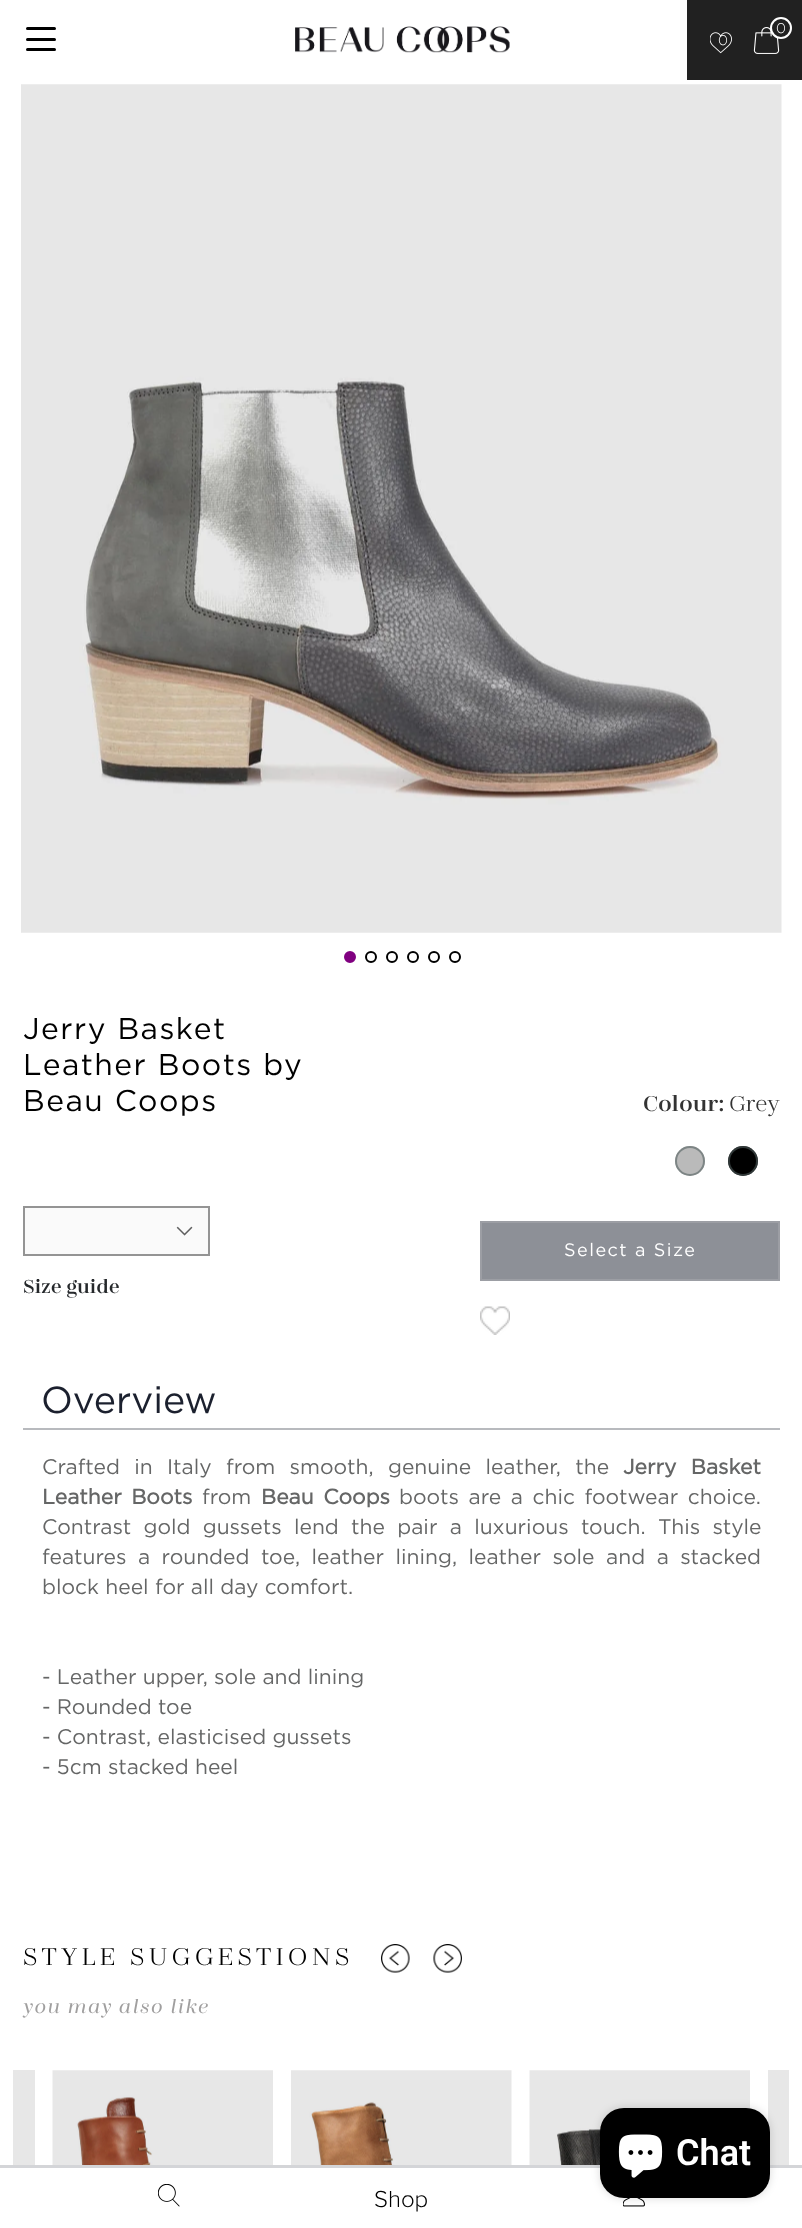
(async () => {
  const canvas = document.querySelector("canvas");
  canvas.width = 802;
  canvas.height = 2228;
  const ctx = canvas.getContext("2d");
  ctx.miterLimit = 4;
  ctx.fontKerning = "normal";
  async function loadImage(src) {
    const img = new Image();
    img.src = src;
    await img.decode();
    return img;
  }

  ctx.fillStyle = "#ffffff";
  ctx.fillRect(0, 0, 802, 2228);
  ctx.fillStyle = "#000000";
  ctx.beginPath();
  ctx.roundRect(26, 27, 30, 3, 1.5);
  ctx.fill();
  ctx.beginPath();
  ctx.roundRect(26, 38, 30, 3, 1.5);
  ctx.fill();
  ctx.beginPath();
  ctx.roundRect(26, 48, 30, 3, 1.5);
  ctx.fill();
  ctx.drawImage(await loadImage("img/1.png"), 295, 26, 215, 27);
  ctx.fillStyle = "#212121";
  ctx.fillRect(687, 0, 115, 80);
  ctx.drawImage(await loadImage("img/2.png"), 753, 27, 27, 27);
  ctx.beginPath();
  ctx.arc(781, 28, 10, 0, Math.PI * 2);
  ctx.fill();
  ctx.strokeStyle = "#ffffff";
  ctx.lineWidth = 2;
  ctx.stroke();
  ctx.drawImage(await loadImage("img/3.png"), 710, 32, 22, 22);
  ctx.drawImage(await loadImage("img/4.png"), 21, 84, 1, 849);
  ctx.drawImage(await loadImage("img/5.png"), 21, 84, 761, 849);
  ctx.fillStyle = "#800080";
  ctx.beginPath();
  ctx.arc(350, 957, 5, 0, Math.PI * 2);
  ctx.fill();
  ctx.strokeStyle = "#800080";
  ctx.stroke();
  ctx.beginPath();
  ctx.arc(371, 957, 5, 0, Math.PI * 2);
  ctx.strokeStyle = "#000000";
  ctx.stroke();
  ctx.beginPath();
  ctx.arc(392, 957, 5, 0, Math.PI * 2);
  ctx.stroke();
  ctx.beginPath();
  ctx.arc(413, 957, 5, 0, Math.PI * 2);
  ctx.stroke();
  ctx.beginPath();
  ctx.arc(434, 957, 5, 0, Math.PI * 2);
  ctx.stroke();
  ctx.beginPath();
  ctx.arc(455, 957, 5, 0, Math.PI * 2);
  ctx.stroke();
  ctx.fillStyle = "#bababa";
  ctx.beginPath();
  ctx.arc(690, 1161, 15, 0, Math.PI * 2);
  ctx.fill();
  ctx.beginPath();
  ctx.arc(690, 1161, 14, 0, Math.PI * 2);
  ctx.strokeStyle = "rgba(81, 94, 95, 0.58)";
  ctx.stroke();
  ctx.fillStyle = "#000000";
  ctx.beginPath();
  ctx.arc(743, 1161, 15, 0, Math.PI * 2);
  ctx.fill();
  ctx.beginPath();
  ctx.arc(743, 1161, 14, 0, Math.PI * 2);
  ctx.stroke();
  ctx.fillStyle = "#fafafa";
  ctx.fillRect(25, 1208, 183, 46);
  ctx.drawImage(await loadImage("img/6.png"), 176, 1226, 17, 10);
  ctx.strokeStyle = "#949494";
  ctx.strokeRect(24, 1207, 185, 48);
  ctx.fillStyle = "#8d9097";
  ctx.beginPath();
  ctx.rect(481, 1222, 298, 58);
  ctx.fill();
  ctx.strokeStyle = "#9c9ea4";
  ctx.stroke();
  ctx.drawImage(await loadImage("img/7.png"), 480, 1306, 30, 29);
  ctx.fillStyle = "#b8babe";
  ctx.fillRect(23, 1428, 757, 2);
  ctx.drawImage(await loadImage("img/8.png"), 381, 1944, 29, 29);
  ctx.drawImage(await loadImage("img/9.png"), 433, 1944, 29, 29);
  ctx.fillStyle = "#e7e7e7";
  ctx.fillRect(13, 2070, 22, 95);
  ctx.drawImage(await loadImage("img/10.png"), 52, 2070, 221, 95);
  ctx.drawImage(await loadImage("img/11.png"), 291, 2070, 221, 95);
  ctx.drawImage(await loadImage("img/12.png"), 529, 2070, 221, 95);
  ctx.fillRect(768, 2070, 21, 95);
  ctx.fillStyle = "#d4d5d8";
  ctx.fillRect(0, 2165, 802, 3);
  ctx.drawImage(await loadImage("img/15.png"), 623, 2198, 22, 9);
  ctx.fillStyle = "rgba(0, 0, 0, 0.15)";
  ctx.filter = "blur(4px)";
  ctx.beginPath();
  ctx.roundRect(600, 2108, 170, 90, 24);
  ctx.fill();
  ctx.filter = "none";
  ctx.fillStyle = "#000000";
  ctx.beginPath();
  ctx.roundRect(600, 2108, 170, 90, 24);
  ctx.fill();
  ctx.drawImage(await loadImage("img/13.png"), 618, 2134, 45, 44);
  ctx.drawImage(await loadImage("img/14.png"), 158, 2184, 22, 23);
  ctx.font = "300 14px Gotham";
  ctx.fillStyle = "#ffffff";
  ctx.fillText("0", 776, 33);
  ctx.fillText("0", 718, 45);
  ctx.letterSpacing = "1.5px";
  ctx.font = "30px Gotham";
  ctx.fillStyle = "#000000";
  for (const [text, x, y] of [
    ["Jerry Basket", 23, 1039],
    ["Leather Boots by", 23, 1075],
    ["Beau Coops", 23, 1111],
  ]) {
    ctx.fillText(text, x, y);
  }
  ctx.letterSpacing = "0px";
  ctx.font = "600 24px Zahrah";
  ctx.fillStyle = "#333333";
  ctx.fillText("Colour:", 643, 1111);
  ctx.font = "24px Zahrah";
  ctx.fillText("Grey", 729, 1111);
  ctx.font = "600 21px Zahrah";
  ctx.fillStyle = "#25282b";
  ctx.fillText("Size guide", 23, 1293);
  ctx.letterSpacing = "1.5px";
  ctx.font = "18px Gotham";
  ctx.fillStyle = "#ffffff";
  ctx.fillText("Select a Size", 564, 1256);
  ctx.letterSpacing = "0px";
  ctx.font = "37.5px Gotham";
  ctx.fillStyle = "#1b202e";
  ctx.fillText("Overview", 41, 1413);
  ctx.wordSpacing = "8px";
  ctx.font = "21px Gotham";
  ctx.fillStyle = "#656666";
  ctx.fillText("Crafted in Italy from smooth, genuine leather, the", 42, 1474);
  ctx.font = "bold 21px Gotham";
  ctx.fillText("Jerry Basket", 623, 1474);
  ctx.wordSpacing = "3.25px";
  ctx.fillText("Leather Boots", 42, 1504);
  ctx.wordSpacing = "0px";
  ctx.font = "21px Gotham";
  ctx.fillText("from", 202, 1504);
  ctx.wordSpacing = "3.25px";
  ctx.font = "bold 21px Gotham";
  ctx.fillText("Beau Coops", 261, 1504);
  ctx.font = "21px Gotham";
  ctx.fillText("boots are a chic footwear choice.", 399, 1504);
  ctx.wordSpacing = "6px";
  ctx.fillText("Contrast gold gussets lend the pair a luxurious touch. This style", 42, 1534);
  ctx.wordSpacing = "5.25px";
  ctx.fillText("features a rounded toe, leather lining, leather sole and a stacked", 42, 1564);
  ctx.wordSpacing = "0px";
  for (const [text, x, y] of [
    ["block heel for all day comfort.", 42, 1594],
    ["- Leather upper, sole and lining", 42, 1684],
    ["- Rounded toe", 42, 1714],
    ["- Contrast, elasticised gussets", 42, 1744],
    ["- 5cm stacked heel", 42, 1774],
  ]) {
    ctx.fillText(text, x, y);
  }
  ctx.letterSpacing = "4.5px";
  ctx.font = "27px Zahrah";
  ctx.fillStyle = "#000000";
  ctx.fillText("STYLE SUGGESTIONS", 23, 1965);
  ctx.letterSpacing = "1.5px";
  ctx.font = "500 21px Zahrah";
  ctx.fillStyle = "#a09f9f";
  ctx.fillText("you may also like", 23, 2013);
  ctx.letterSpacing = "0px";
  ctx.font = "600 36px Roboto";
  ctx.fillStyle = "#ffffff";
  ctx.fillText("Chat", 676, 2165);
  ctx.font = "300 24px Proxima Nova";
  ctx.fillStyle = "#000000";
  ctx.fillText("Shop", 374, 2207);
})();
